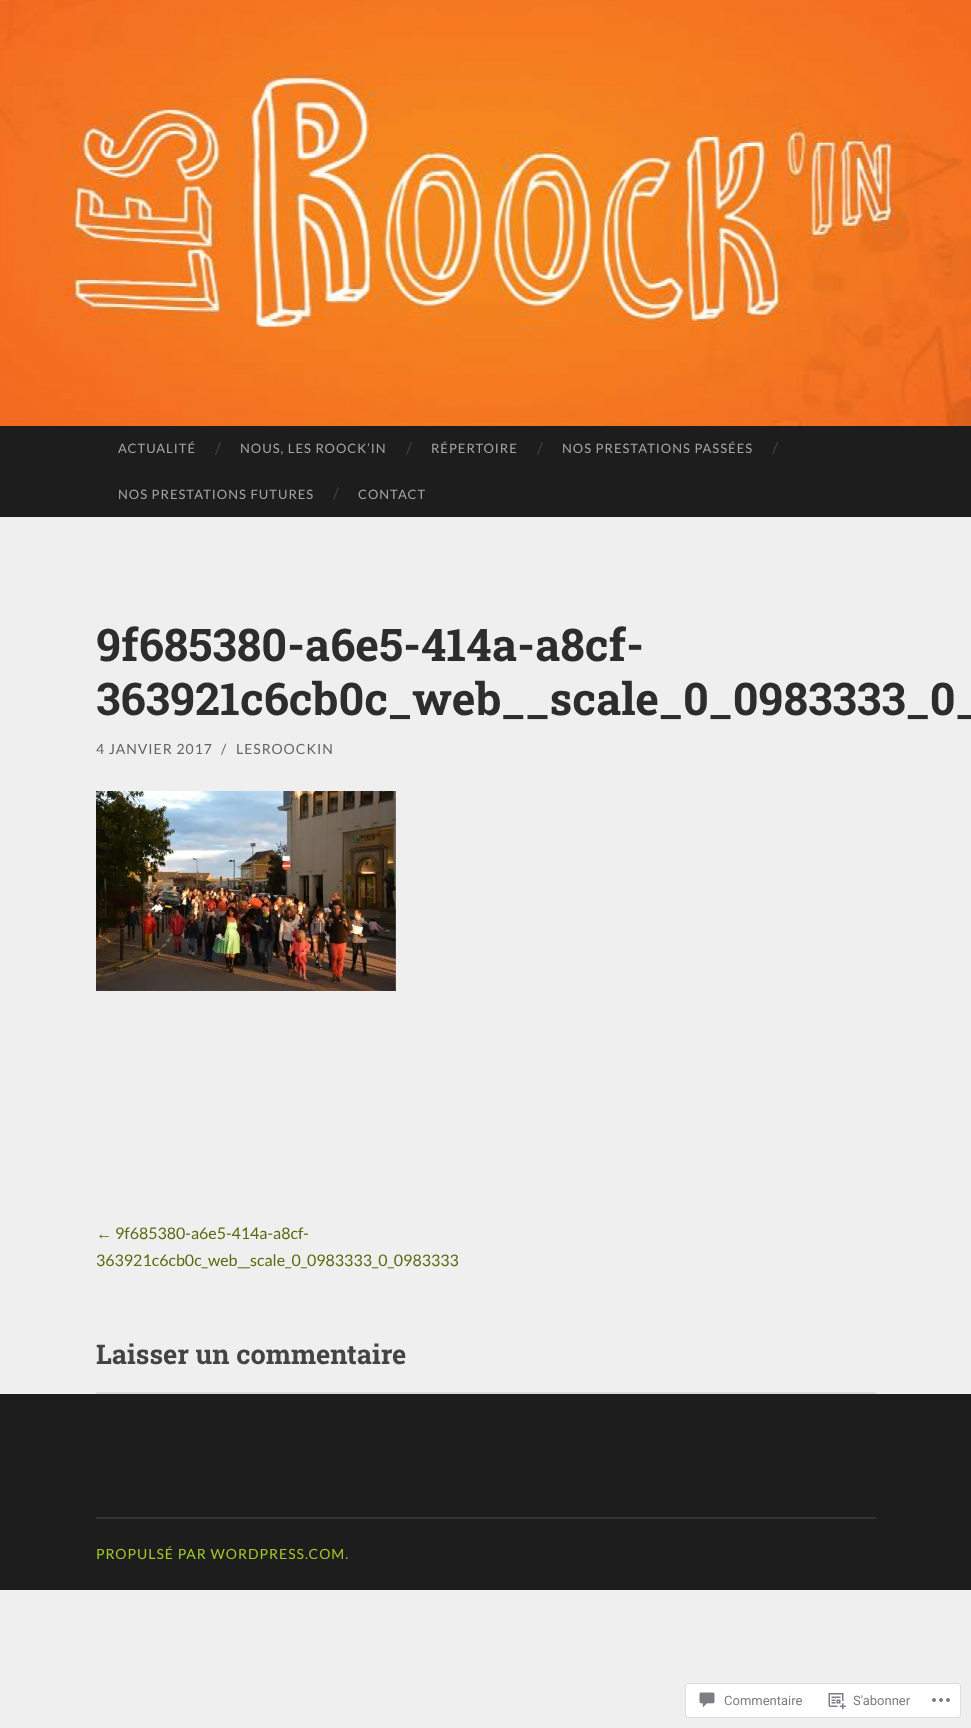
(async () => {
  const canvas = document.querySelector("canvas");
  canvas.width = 971;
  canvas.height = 1728;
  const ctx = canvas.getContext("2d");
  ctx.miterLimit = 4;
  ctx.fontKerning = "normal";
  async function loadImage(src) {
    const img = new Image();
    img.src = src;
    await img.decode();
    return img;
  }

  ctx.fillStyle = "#efefef";
  ctx.fillRect(0, 0, 971, 1728);
  ctx.drawImage(await loadImage("img/1.png"), 0, 0, 971, 426);
  ctx.fillStyle = "#1d1d1d";
  ctx.fillRect(0, 426, 971, 91);
  ctx.drawImage(await loadImage("img/2.png"), 96, 791, 300, 200);
  for (const [x, y, w, h, color] of [
    [96, 1392, 780, 2, "#dcdcde"],
    [0, 1394, 971, 196, "#1d1d1d"],
    [96, 1517, 780, 2, "#343434"],
  ]) {
    ctx.fillStyle = color;
    ctx.fillRect(x, y, w, h);
  }
  ctx.fillStyle = "#ffffff";
  ctx.beginPath();
  ctx.roundRect(685.5, 1683.5, 275, 34, 2.5);
  ctx.fill();
  ctx.strokeStyle = "#dcdcde";
  ctx.stroke();
  ctx.drawImage(await loadImage("img/3.png"), 699, 1692, 16, 16);
  ctx.drawImage(await loadImage("img/4.png"), 828, 1693, 18, 17);
  ctx.drawImage(await loadImage("img/5.png"), 932, 1698, 18, 4);
  ctx.letterSpacing = "1px";
  ctx.font = "13px Lato";
  ctx.fillStyle = "#a5a5a5";
  ctx.fillText("ACTUALITÉ", 118, 453);
  ctx.letterSpacing = "0px";
  ctx.font = "16px Lato";
  ctx.fillStyle = "#444444";
  ctx.fillText("/", 215, 454);
  ctx.letterSpacing = "1px";
  ctx.font = "13px Lato";
  ctx.fillStyle = "#a5a5a5";
  ctx.fillText("NOUS, LES ROOCK’IN", 240, 453);
  ctx.letterSpacing = "0px";
  ctx.font = "16px Lato";
  ctx.fillStyle = "#444444";
  ctx.fillText("/", 406, 454);
  ctx.letterSpacing = "1px";
  ctx.font = "13px Lato";
  ctx.fillStyle = "#a5a5a5";
  ctx.fillText("RÉPERTOIRE", 431, 453);
  ctx.letterSpacing = "0px";
  ctx.font = "16px Lato";
  ctx.fillStyle = "#444444";
  ctx.fillText("/", 537, 454);
  ctx.letterSpacing = "1px";
  ctx.font = "13px Lato";
  ctx.fillStyle = "#a5a5a5";
  ctx.fillText("NOS PRESTATIONS PASSÉES", 562, 453);
  ctx.letterSpacing = "0px";
  ctx.font = "16px Lato";
  ctx.fillStyle = "#444444";
  ctx.fillText("/", 772, 454);
  ctx.letterSpacing = "1px";
  ctx.font = "13px Lato";
  ctx.fillStyle = "#a5a5a5";
  ctx.fillText("NOS PRESTATIONS FUTURES", 118, 499);
  ctx.letterSpacing = "0px";
  ctx.font = "16px Lato";
  ctx.fillStyle = "#444444";
  ctx.fillText("/", 333, 499);
  ctx.letterSpacing = "1px";
  ctx.font = "13px Lato";
  ctx.fillStyle = "#a5a5a5";
  ctx.fillText("CONTACT", 358, 499);
  ctx.letterSpacing = "0px";
  ctx.font = "bold 45px Roboto Slab";
  ctx.fillStyle = "#2d2d2d";
  ctx.fillText("9f685380-a6e5-414a-a8cf-", 96, 661);
  ctx.fillText("363921c6cb0c_web__scale_0_0983333_0_", 96, 715);
  ctx.letterSpacing = "1px";
  ctx.font = "14px Lato";
  ctx.fillStyle = "#636363";
  for (const [text, x, y] of [
    ["4 JANVIER 2017", 96, 754],
    ["/", 221, 754],
    ["LESROOCKIN", 236, 754],
  ]) {
    ctx.fillText(text, x, y);
  }
  ctx.letterSpacing = "0px";
  ctx.font = "16px Liberation Sans";
  ctx.fillStyle = "#566b0e";
  ctx.fillText("←", 96, 1239);
  ctx.font = "16px Lato";
  ctx.fillText("9f685380-a6e5-414a-a8cf-", 115, 1239);
  ctx.fillText("363921c6cb0c_web__scale_0_0983333_0_0983333", 96, 1266);
  ctx.font = "bold 27px Roboto Slab";
  ctx.fillStyle = "#444444";
  ctx.fillText("Laisser un commentaire", 96, 1364);
  ctx.letterSpacing = "1px";
  ctx.font = "14px Lato";
  ctx.fillStyle = "#a4c92a";
  ctx.fillText("PROPULSÉ PAR WORDPRESS.COM.", 96, 1559);
  ctx.letterSpacing = "0px";
  ctx.font = "13px Roboto";
  ctx.fillStyle = "#7a7e84";
  ctx.fillText("Commentaire", 724, 1705);
  ctx.fillText("S'abonner", 853, 1705);
})();
